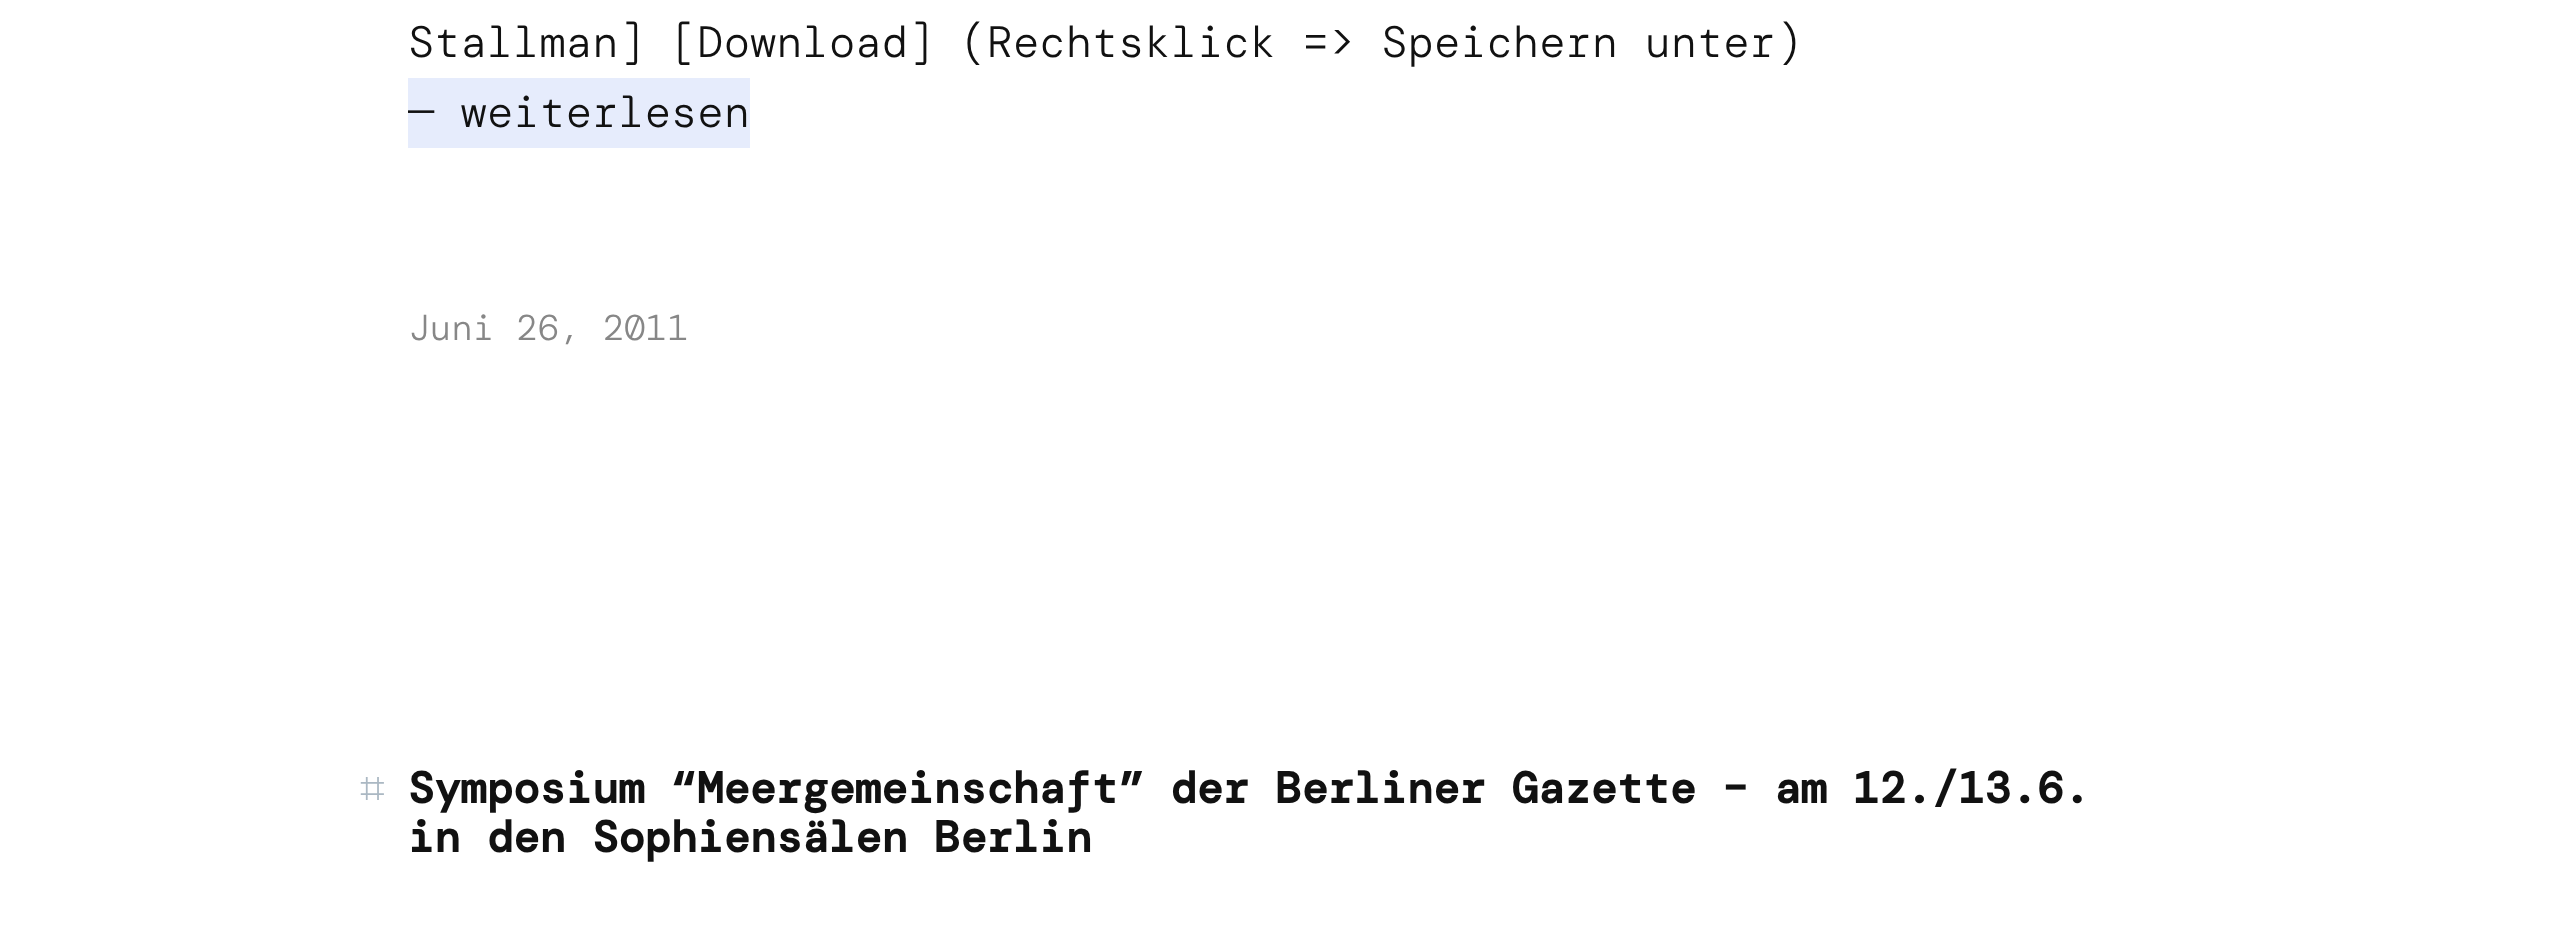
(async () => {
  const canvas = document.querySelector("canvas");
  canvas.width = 2552;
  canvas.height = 939;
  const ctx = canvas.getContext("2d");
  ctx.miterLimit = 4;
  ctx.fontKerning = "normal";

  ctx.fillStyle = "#ffffff";
  ctx.fillRect(0, 0, 2552, 939);
  ctx.fillStyle = "#e6ecfc";
  ctx.fillRect(408, 78, 342, 70);
  ctx.font = "300 43.85px DM Mono";
  ctx.fillStyle = "#111111";
  ctx.fillText("Stallman] [Download] (Rechtsklick => Speichern unter)", 408, 57);
  ctx.fillText("— weiterlesen", 408, 127);
  ctx.font = "300 36px DM Mono";
  ctx.fillStyle = "#878787";
  ctx.fillText("Juni 26, 2011", 408, 340);
  ctx.font = "43.85px FreeSerif";
  ctx.fillStyle = "#abb8c3";
  ctx.fillText("⌗", 360, 803);
  ctx.wordSpacing = "-0.25px";
  ctx.font = "bold 43.85px DM Mono";
  ctx.fillStyle = "#111111";
  ctx.fillText("Symposium “Meergemeinschaft” der Berliner Gazette – am 12./13.6.", 408, 803);
  ctx.wordSpacing = "0px";
  ctx.fillText("in den Sophiensälen Berlin", 408, 852);
})();
